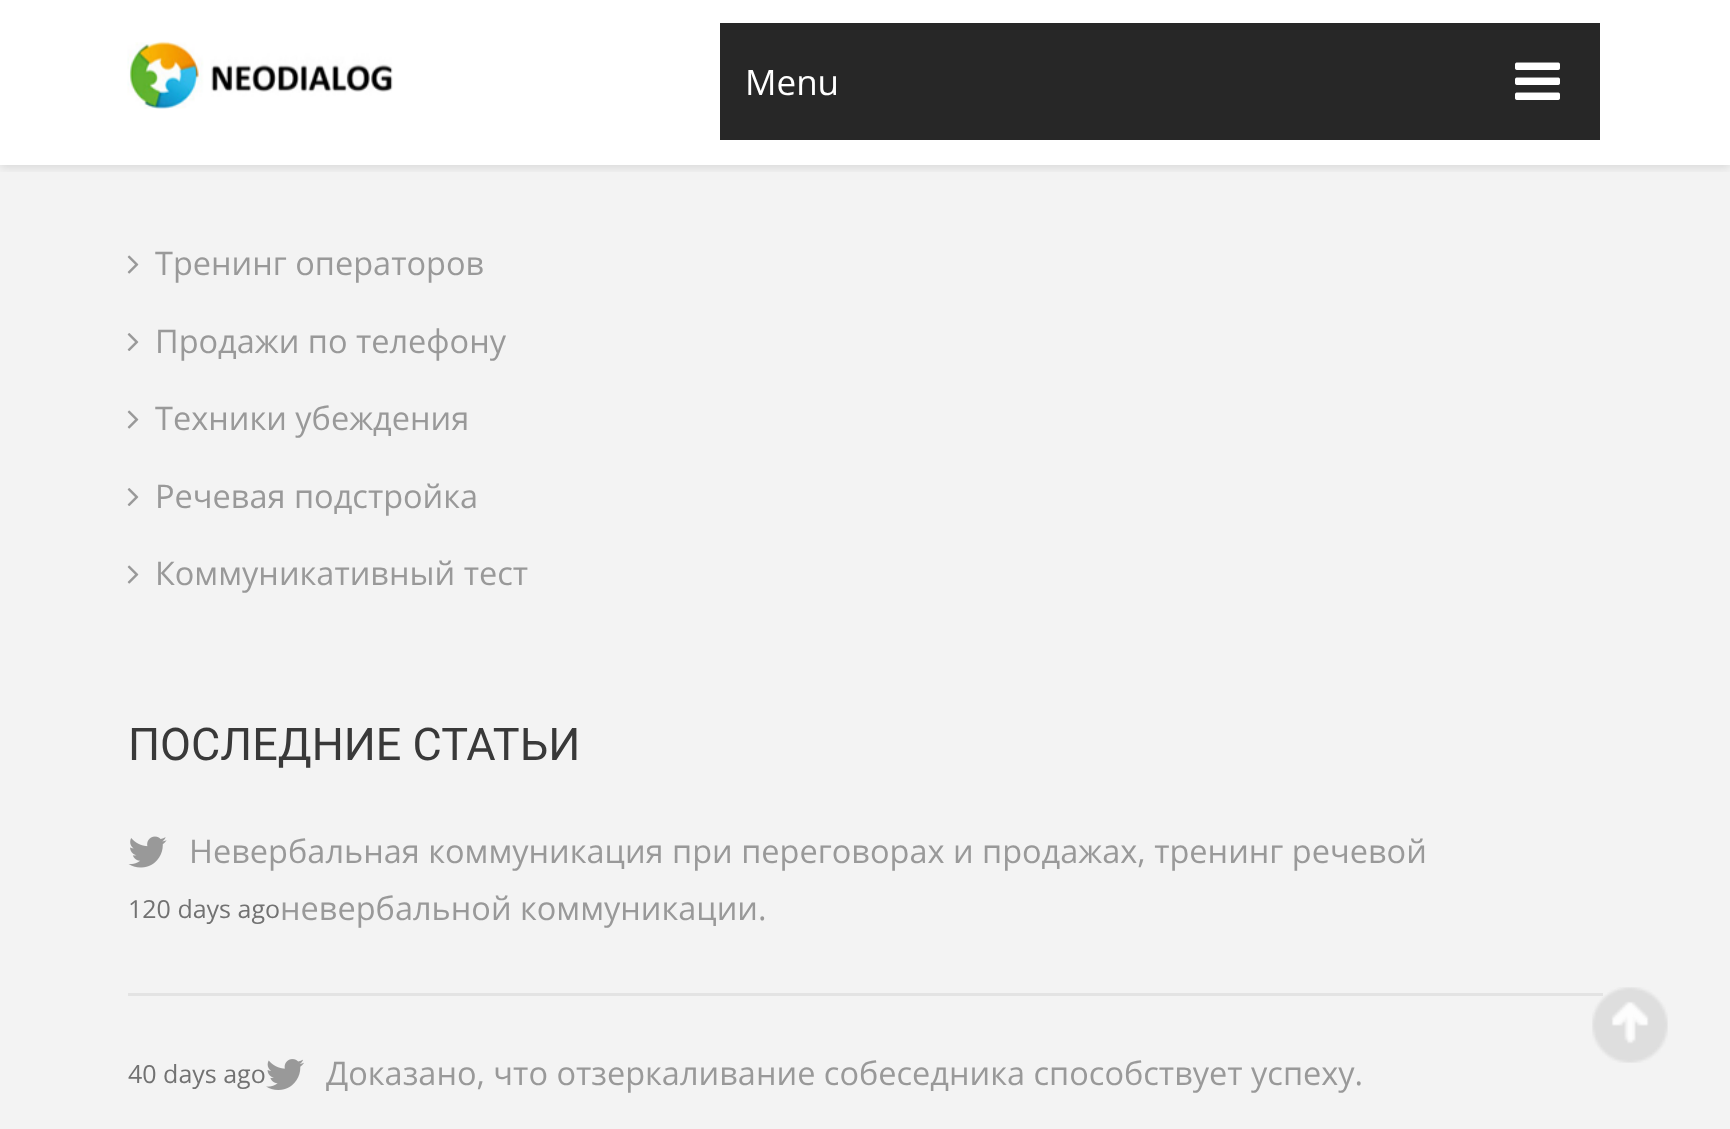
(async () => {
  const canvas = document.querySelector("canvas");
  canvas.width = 1730;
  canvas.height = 1129;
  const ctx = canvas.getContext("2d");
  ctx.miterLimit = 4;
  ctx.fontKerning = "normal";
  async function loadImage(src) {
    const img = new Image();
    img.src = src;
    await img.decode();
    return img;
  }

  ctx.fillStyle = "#f3f3f3";
  ctx.fillRect(0, 0, 1730, 1129);
  ctx.save();
  ctx.beginPath();
  ctx.rect(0, 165, 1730, 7);
  ctx.clip();
  ctx.fillStyle = "rgba(0, 0, 0, 0.1)";
  ctx.filter = "blur(5px)";
  ctx.beginPath();
  ctx.rect(0, 3, 1730, 165);
  ctx.fill();
  ctx.filter = "none";
  ctx.restore();
  ctx.fillStyle = "rgba(255, 255, 255, 0.95)";
  ctx.fillRect(0, 0, 1730, 165);
  ctx.drawImage(await loadImage("img/1.png"), 127, 41, 266, 68);
  ctx.fillStyle = "#272727";
  ctx.fillRect(720, 23, 880, 117);
  ctx.drawImage(await loadImage("img/2.png"), 1515, 62, 45, 38);
  ctx.drawImage(await loadImage("img/3.png"), 127, 255, 12, 19);
  ctx.drawImage(await loadImage("img/4.png"), 127, 333, 12, 18);
  ctx.drawImage(await loadImage("img/3.png"), 127, 410, 12, 19);
  ctx.drawImage(await loadImage("img/4.png"), 127, 488, 12, 18);
  ctx.drawImage(await loadImage("img/3.png"), 127, 565, 12, 19);
  ctx.fillStyle = "#e3e3e3";
  ctx.fillRect(128, 993, 1475, 3);
  ctx.drawImage(await loadImage("img/5.png"), 128, 836, 39, 32);
  ctx.drawImage(await loadImage("img/6.png"), 266, 1059, 38, 31);
  ctx.drawImage(await loadImage("img/7.png"), 1592, 987, 76, 76);
  ctx.font = "35px Open Sans";
  ctx.fillStyle = "#ffffff";
  ctx.fillText("Menu", 745, 95);
  ctx.font = "32.5px Open Sans";
  ctx.fillStyle = "#999999";
  for (const [text, x, y] of [
    ["Тренинг операторов", 155, 275],
    ["Продажи по телефону", 155, 353],
    ["Техники убеждения", 155, 430],
    ["Речевая подстройка", 155, 508],
    ["Коммуникативный тест", 155, 585],
  ]) {
    ctx.fillText(text, x, y);
  }
  ctx.font = "45px Roboto";
  ctx.fillStyle = "#393939";
  ctx.fillText("ПОСЛЕДНИЕ СТАТЬИ", 128, 760);
  ctx.font = "32.5px Open Sans";
  ctx.fillStyle = "#999999";
  ctx.fillText("Невербальная коммуникация при переговорах и продажах, тренинг речевой", 189, 863);
  ctx.font = "25px Open Sans";
  ctx.fillStyle = "#727272";
  ctx.fillText("120 days ago", 128, 918);
  ctx.font = "32.5px Open Sans";
  ctx.fillStyle = "#999999";
  ctx.fillText("невербальной коммуникации.", 280, 920);
  ctx.font = "25px Open Sans";
  ctx.fillStyle = "#727272";
  ctx.fillText("40 days ago", 128, 1083);
  ctx.font = "32.5px Open Sans";
  ctx.fillStyle = "#999999";
  ctx.fillText("Доказано, что отзеркаливание собеседника способствует успеху.", 326, 1085);
})();
